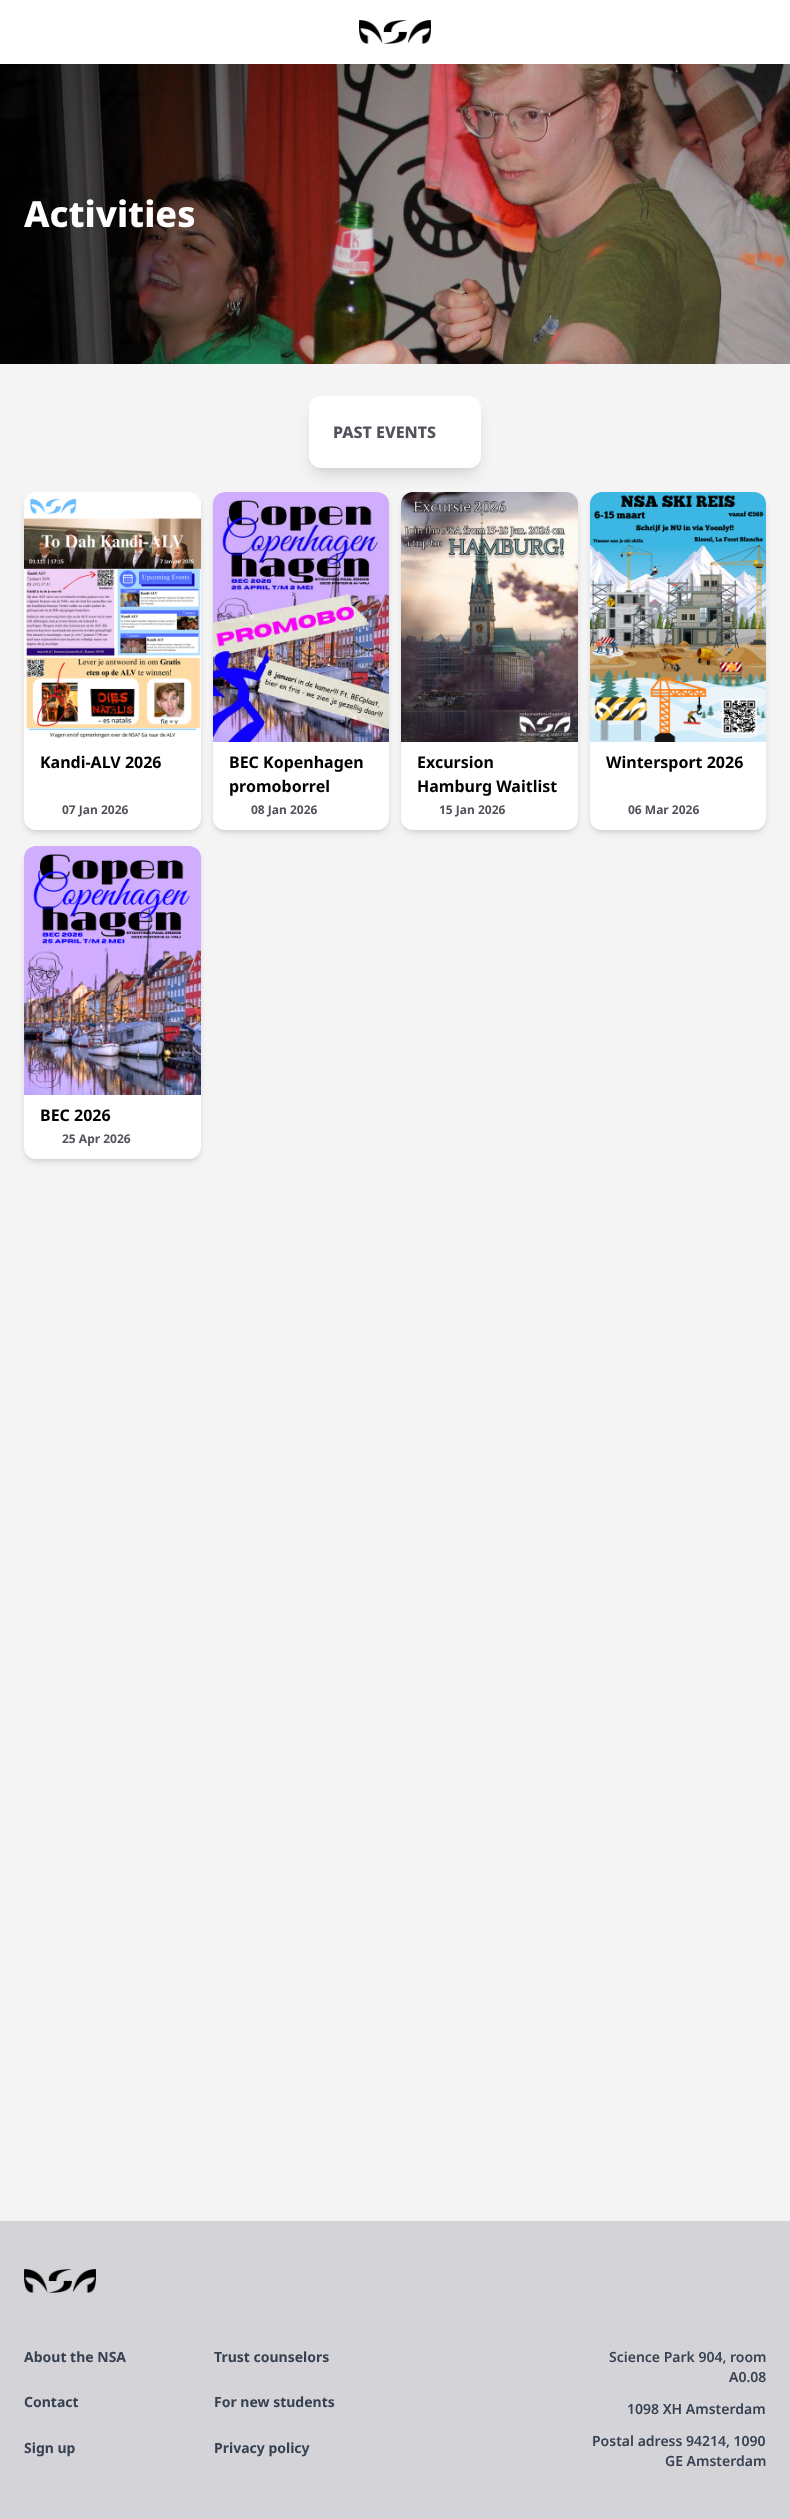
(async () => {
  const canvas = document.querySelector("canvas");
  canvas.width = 790;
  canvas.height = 2519;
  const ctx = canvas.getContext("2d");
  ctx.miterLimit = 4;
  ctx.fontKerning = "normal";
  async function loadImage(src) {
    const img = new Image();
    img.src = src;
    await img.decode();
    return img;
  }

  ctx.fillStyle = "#f4f4f5";
  ctx.fillRect(0, 0, 790, 2519);
  ctx.fillStyle = "#ffffff";
  ctx.fillRect(0, 0, 790, 64);
  ctx.drawImage(await loadImage("img/1.png"), 359, 20, 72, 24);
  ctx.drawImage(await loadImage("img/2.png"), 0, 64, 790, 300);
  ctx.fillStyle = "rgba(0, 0, 0, 0.1)";
  ctx.filter = "blur(3px)";
  ctx.beginPath();
  ctx.roundRect(313, 404, 164, 64, 8);
  ctx.fill();
  ctx.filter = "none";
  ctx.filter = "blur(7.5px)";
  ctx.beginPath();
  ctx.roundRect(312, 409, 166, 66, 9);
  ctx.fill();
  ctx.filter = "none";
  ctx.fillStyle = "#ffffff";
  ctx.beginPath();
  ctx.roundRect(309, 396, 172, 72, 12);
  ctx.fill();
  ctx.fillStyle = "rgba(0, 0, 0, 0.1)";
  ctx.filter = "blur(2px)";
  ctx.beginPath();
  ctx.roundRect(26, 496, 173, 334, 10);
  ctx.fill();
  ctx.filter = "none";
  ctx.filter = "blur(3px)";
  ctx.beginPath();
  ctx.roundRect(25, 497, 175, 336, 11);
  ctx.fill();
  ctx.filter = "none";
  ctx.fillStyle = "#ffffff";
  ctx.beginPath();
  ctx.roundRect(24, 492, 177, 338, 12);
  ctx.fill();
  ctx.drawImage(await loadImage("img/3.png"), 24, 498, 177, 241);
  ctx.fillStyle = "rgba(0, 0, 0, 0.1)";
  ctx.filter = "blur(2px)";
  ctx.beginPath();
  ctx.roundRect(215, 496, 172, 334, 10);
  ctx.fill();
  ctx.filter = "none";
  ctx.filter = "blur(3px)";
  ctx.beginPath();
  ctx.roundRect(214, 497, 174, 336, 11);
  ctx.fill();
  ctx.filter = "none";
  ctx.fillStyle = "#ffffff";
  ctx.beginPath();
  ctx.roundRect(213, 492, 176, 338, 12);
  ctx.fill();
  ctx.drawImage(await loadImage("img/4.png"), 213, 492, 176, 250);
  ctx.fillStyle = "rgba(0, 0, 0, 0.1)";
  ctx.filter = "blur(2px)";
  ctx.beginPath();
  ctx.roundRect(403, 496, 173, 334, 10);
  ctx.fill();
  ctx.filter = "none";
  ctx.filter = "blur(3px)";
  ctx.beginPath();
  ctx.roundRect(402, 497, 175, 336, 11);
  ctx.fill();
  ctx.filter = "none";
  ctx.fillStyle = "#ffffff";
  ctx.beginPath();
  ctx.roundRect(401, 492, 177, 338, 12);
  ctx.fill();
  ctx.drawImage(await loadImage("img/5.png"), 401, 492, 177, 250);
  ctx.fillStyle = "rgba(0, 0, 0, 0.1)";
  ctx.filter = "blur(2px)";
  ctx.beginPath();
  ctx.roundRect(592, 496, 172, 334, 10);
  ctx.fill();
  ctx.filter = "none";
  ctx.filter = "blur(3px)";
  ctx.beginPath();
  ctx.roundRect(591, 497, 174, 336, 11);
  ctx.fill();
  ctx.filter = "none";
  ctx.fillStyle = "#ffffff";
  ctx.beginPath();
  ctx.roundRect(590, 492, 176, 338, 12);
  ctx.fill();
  ctx.drawImage(await loadImage("img/6.png"), 590, 492, 176, 250);
  ctx.fillStyle = "rgba(0, 0, 0, 0.1)";
  ctx.filter = "blur(2px)";
  ctx.beginPath();
  ctx.roundRect(26, 850, 173, 309, 10);
  ctx.fill();
  ctx.filter = "none";
  ctx.filter = "blur(3px)";
  ctx.beginPath();
  ctx.roundRect(25, 851, 175, 311, 11);
  ctx.fill();
  ctx.filter = "none";
  ctx.fillStyle = "#ffffff";
  ctx.beginPath();
  ctx.roundRect(24, 846, 177, 313, 12);
  ctx.fill();
  ctx.drawImage(await loadImage("img/7.png"), 24, 846, 177, 249);
  ctx.fillStyle = "#d4d4d8";
  ctx.fillRect(0, 2221, 790, 298);
  ctx.drawImage(await loadImage("img/8.png"), 24, 2269, 72, 24);
  ctx.font = "800 36px Noto Sans";
  ctx.fillStyle = "#ffffff";
  ctx.fillText("Activities", 24, 227);
  ctx.font = "800 16px Noto Sans";
  ctx.fillStyle = "#52525b";
  ctx.fillText("PAST EVENTS", 333, 438);
  ctx.font = "bold 16px Noto Sans";
  ctx.fillStyle = "#000000";
  ctx.fillText("Kandi-ALV 2026", 40, 768);
  ctx.font = "bold 12px Noto Sans";
  ctx.fillStyle = "#52525b";
  ctx.fillText("07 Jan 2026", 62, 814);
  ctx.font = "bold 16px Noto Sans";
  ctx.fillStyle = "#000000";
  ctx.fillText("BEC Kopenhagen", 229, 768);
  ctx.fillText("promoborrel", 229, 792);
  ctx.font = "bold 12px Noto Sans";
  ctx.fillStyle = "#52525b";
  ctx.fillText("08 Jan 2026", 251, 814);
  ctx.font = "bold 16px Noto Sans";
  ctx.fillStyle = "#000000";
  ctx.fillText("Excursion", 417, 768);
  ctx.fillText("Hamburg Waitlist", 417, 792);
  ctx.font = "bold 12px Noto Sans";
  ctx.fillStyle = "#52525b";
  ctx.fillText("15 Jan 2026", 439, 814);
  ctx.font = "bold 16px Noto Sans";
  ctx.fillStyle = "#000000";
  ctx.fillText("Wintersport 2026", 606, 768);
  ctx.font = "bold 12px Noto Sans";
  ctx.fillStyle = "#52525b";
  ctx.fillText("06 Mar 2026", 628, 814);
  ctx.font = "bold 16px Noto Sans";
  ctx.fillStyle = "#000000";
  ctx.fillText("BEC 2026", 40, 1121);
  ctx.font = "bold 12px Noto Sans";
  ctx.fillStyle = "#52525b";
  ctx.fillText("25 Apr 2026", 62, 1143);
  ctx.font = "bold 14px Noto Sans";
  ctx.fillStyle = "#374151";
  for (const [text, x, y] of [
    ["About the NSA", 24, 2362],
    ["Trust counselors", 214, 2362],
    ["Contact", 24, 2407],
    ["For new students", 214, 2407],
    ["Sign up", 24, 2453],
    ["Privacy policy", 214, 2453],
  ]) {
    ctx.fillText(text, x, y);
  }
  ctx.font = "600 14px Noto Sans";
  for (const [text, x, y] of [
    ["Science Park 904, room", 609, 2362],
    ["A0.08", 729, 2382],
    ["1098 XH Amsterdam", 627, 2414],
    ["Postal adress 94214, 1090", 592, 2446],
    ["GE Amsterdam", 665, 2466],
  ]) {
    ctx.fillText(text, x, y);
  }
})();
